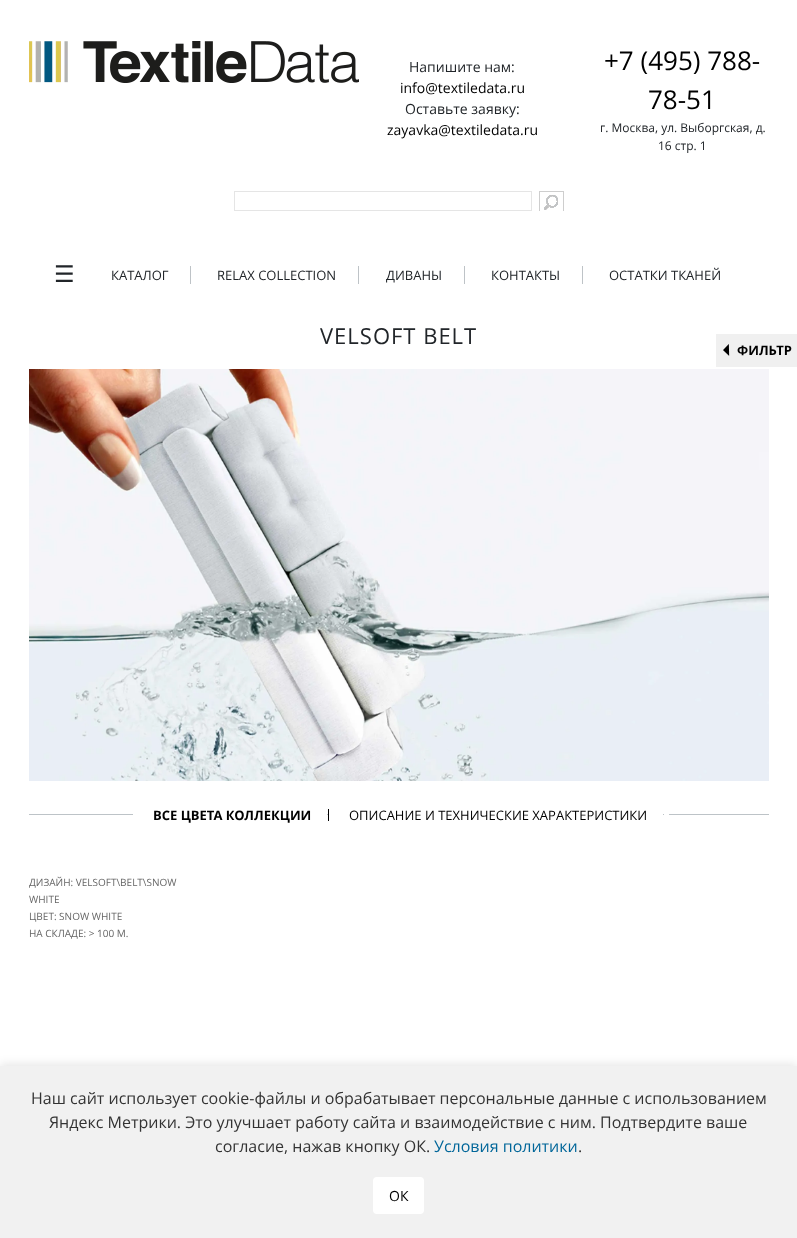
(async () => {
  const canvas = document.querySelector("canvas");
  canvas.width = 797;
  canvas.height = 1238;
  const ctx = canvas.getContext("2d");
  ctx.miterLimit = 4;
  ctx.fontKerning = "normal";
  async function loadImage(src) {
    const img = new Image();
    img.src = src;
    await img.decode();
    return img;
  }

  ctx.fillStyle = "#ffffff";
  ctx.fillRect(0, 0, 797, 1238);
  ctx.drawImage(await loadImage("img/1.png"), 29, 41, 330, 42);
  ctx.strokeStyle = "#e5e5e5";
  ctx.strokeRect(234.5, 191.5, 297, 19);
  ctx.drawImage(await loadImage("img/2.png"), 544, 195, 14, 15);
  ctx.save();
  ctx.beginPath();
  ctx.rect(234, 191, 330, 20);
  ctx.clip();
  ctx.strokeStyle = "#cecece";
  ctx.strokeRect(539.5, 191.5, 24, 21);
  ctx.restore();
  for (const [x, y, w, h, color] of [
    [190, 266, 1, 18, "#bec3c7"],
    [358, 266, 1, 18, "#bec3c7"],
    [464, 266, 1, 18, "#bec3c7"],
    [582, 266, 1, 18, "#bec3c7"],
  ]) {
    ctx.fillStyle = color;
    ctx.fillRect(x, y, w, h);
  }
  ctx.drawImage(await loadImage("img/3.png"), 29, 369, 740, 412);
  for (const [x, y, w, h, color] of [
    [29, 814, 740, 1, "#bdc3c7"],
    [329, 809, 4, 12, "#ffffff"],
    [328, 809, 1, 12, "#000000"],
    [133, 814, 194, 1, "#ffffff"],
    [664, 809, 5, 12, "#ffffff"],
    [333, 814, 330, 1, "#ffffff"],
    [716, 334, 81, 33, "#f0f0f0"],
  ]) {
    ctx.fillStyle = color;
    ctx.fillRect(x, y, w, h);
  }
  ctx.drawImage(await loadImage("img/4.png"), 723, 344, 7, 12);
  ctx.fillStyle = "rgba(0, 0, 0, 0.1)";
  ctx.filter = "blur(5px)";
  ctx.beginPath();
  ctx.rect(0, 1064, 797, 172);
  ctx.fill();
  ctx.filter = "none";
  ctx.fillStyle = "#f1f1f1";
  ctx.fillRect(0, 1066, 797, 172);
  ctx.fillStyle = "#ffffff";
  ctx.beginPath();
  ctx.roundRect(373, 1177, 51, 37, 4);
  ctx.fill();
  ctx.font = "14px Open Sans";
  ctx.fillStyle = "#212529";
  ctx.fillText("Напишите нам:", 409, 72);
  ctx.fillStyle = "#000000";
  ctx.fillText("info@textiledata.ru", 400, 93);
  ctx.fillStyle = "#212529";
  ctx.fillText("Оставьте заявку:", 405, 114);
  ctx.fillStyle = "#000000";
  ctx.fillText("zayavka@textiledata.ru", 387, 135);
  ctx.font = "26px Open Sans";
  ctx.fillText("+7 (495) 788-", 604, 70);
  ctx.fillText("78-51", 648, 109);
  ctx.font = "12px Open Sans";
  ctx.fillStyle = "#212529";
  ctx.fillText("г. Москва, ул. Выборгская, д.", 600, 132);
  ctx.fillText("16 стр. 1", 658, 150);
  ctx.font = "23px DejaVu Sans";
  ctx.fillText("☰", 54, 282);
  ctx.font = "13px Open Sans";
  for (const [text, x, y] of [
    ["КАТАЛОГ", 111, 280],
    ["RELAX COLLECTION", 217, 280],
    ["ДИВАНЫ", 386, 280],
    ["КОНТАКТЫ", 491, 280],
    ["ОСТАТКИ ТКАНЕЙ", 609, 280],
  ]) {
    ctx.fillText(text, x, y);
  }
  ctx.letterSpacing = "1px";
  ctx.font = "22px Open Sans";
  ctx.fillText("VELSOFT BELT", 320, 344);
  ctx.letterSpacing = "0px";
  ctx.font = "bold 13px Open Sans";
  ctx.fillStyle = "#000000";
  ctx.fillText("ВСЕ ЦВЕТА КОЛЛЕКЦИИ", 153, 820);
  ctx.font = "13px Open Sans";
  ctx.fillText("ОПИСАНИЕ И ТЕХНИЧЕСКИЕ ХАРАКТЕРИСТИКИ", 349, 820);
  ctx.font = "10px Open Sans";
  ctx.fillStyle = "#666666";
  for (const [text, x, y] of [
    ["ДИЗАЙН: VELSOFT\\BELT\\SNOW", 29, 886],
    ["WHITE", 29, 903],
    ["ЦВЕТ: SNOW WHITE", 29, 920],
    ["НА СКЛАДЕ: > 100 М.", 29, 937],
  ]) {
    ctx.fillText(text, x, y);
  }
  ctx.font = "bold 13px Open Sans";
  ctx.fillStyle = "#000000";
  ctx.fillText("ФИЛЬТР", 737, 355);
  ctx.font = "16px Open Sans";
  ctx.fillStyle = "#333333";
  for (const [text, x, y] of [
    ["Наш сайт использует cookie-файлы и обрабатывает персональные данные с использованием", 31, 1104],
    ["Яндекс Метрики. Это улучшает работу сайта и взаимодействие с ним. Подтвердите ваше", 49, 1128],
    ["согласие, нажав кнопку ОК.", 215, 1152],
  ]) {
    ctx.fillText(text, x, y);
  }
  ctx.fillStyle = "#006699";
  ctx.fillText("Условия политики", 434, 1152);
  ctx.fillStyle = "#333333";
  ctx.fillText(".", 578, 1152);
  ctx.font = "14px Open Sans";
  ctx.fillStyle = "#000000";
  ctx.fillText("ОК", 389, 1201);
})();
